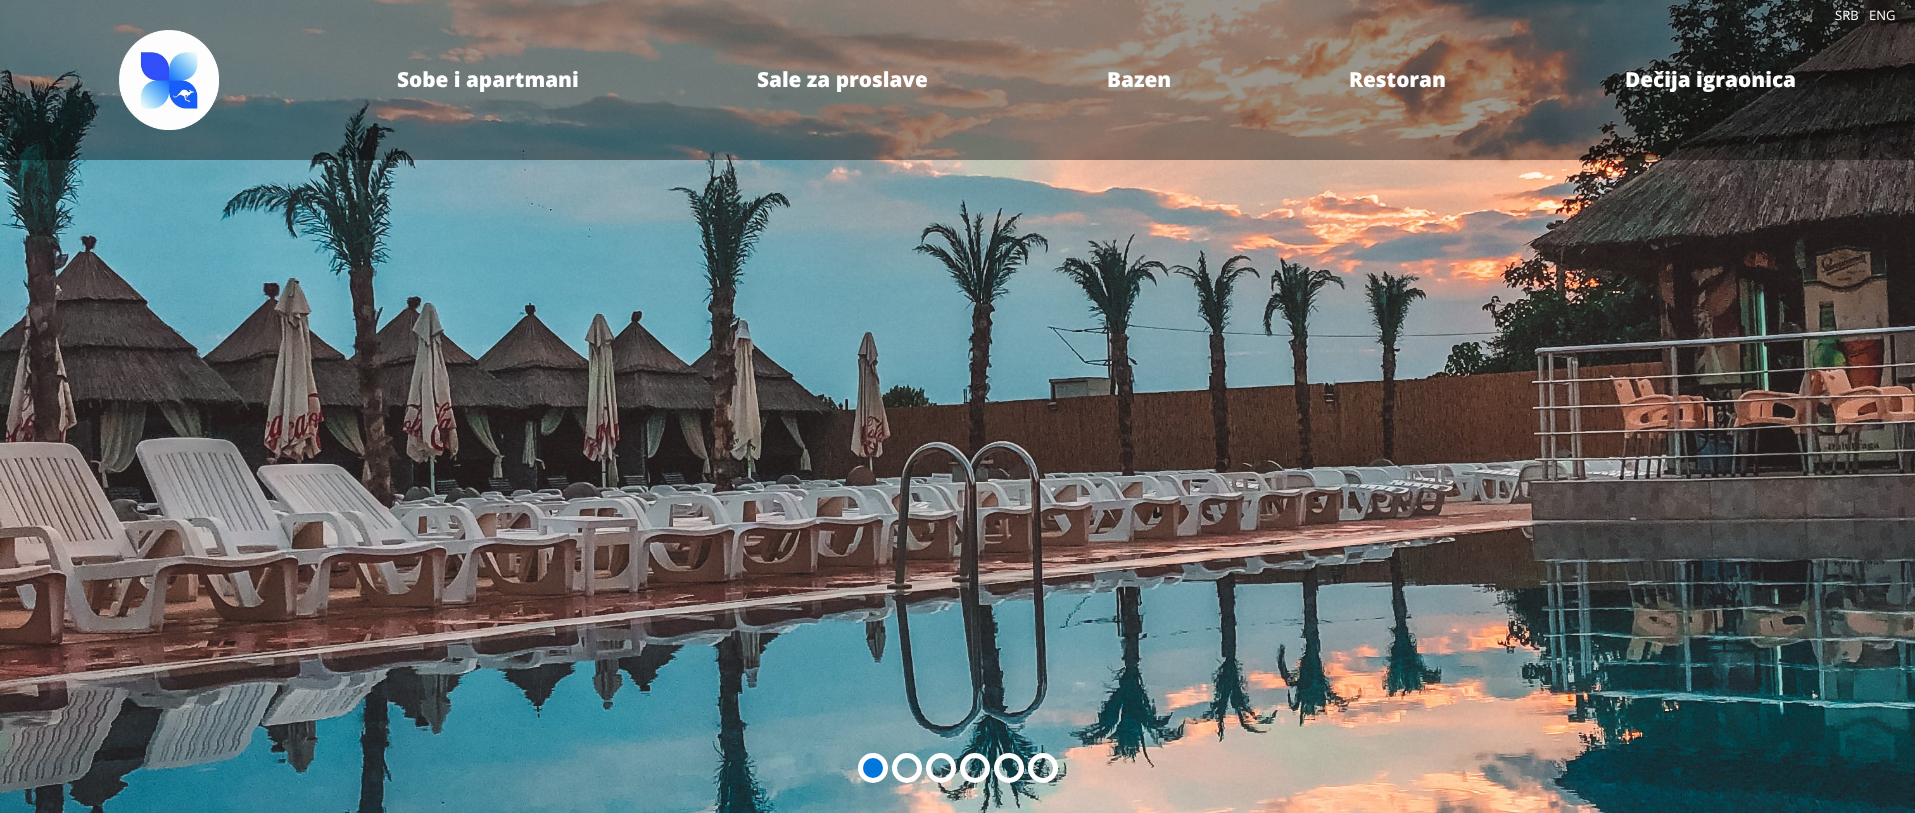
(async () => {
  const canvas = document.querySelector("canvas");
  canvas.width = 1915;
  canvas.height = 813;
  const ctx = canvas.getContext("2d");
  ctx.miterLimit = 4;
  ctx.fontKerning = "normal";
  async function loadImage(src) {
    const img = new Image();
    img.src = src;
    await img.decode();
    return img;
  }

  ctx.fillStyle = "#ffffff";
  ctx.fillRect(0, 0, 1915, 813);
  ctx.drawImage(await loadImage("img/1.png"), 0, 0, 1915, 813);
  ctx.fillStyle = "rgba(0, 0, 0, 0.4)";
  ctx.fillRect(0, 0, 1915, 160);
  ctx.drawImage(await loadImage("img/2.png"), 119, 30, 100, 100);
  ctx.fillStyle = "#0075db";
  ctx.beginPath();
  ctx.arc(873, 768, 12.5, 0, Math.PI * 2);
  ctx.fill();
  ctx.strokeStyle = "#ffffff";
  ctx.lineWidth = 5;
  ctx.stroke();
  ctx.beginPath();
  ctx.arc(907, 768, 12.5, 0, Math.PI * 2);
  ctx.stroke();
  ctx.beginPath();
  ctx.arc(941, 768, 12.5, 0, Math.PI * 2);
  ctx.stroke();
  ctx.beginPath();
  ctx.arc(975, 768, 12.5, 0, Math.PI * 2);
  ctx.stroke();
  ctx.beginPath();
  ctx.arc(1009, 768, 12.5, 0, Math.PI * 2);
  ctx.stroke();
  ctx.beginPath();
  ctx.arc(1043, 768, 12.5, 0, Math.PI * 2);
  ctx.stroke();
  ctx.font = "13px Open Sans";
  ctx.fillStyle = "#ffffff";
  ctx.fillText("SRB", 1835, 20);
  ctx.fillText("ENG", 1869, 20);
  ctx.font = "800 20.75px Open Sans";
  for (const [text, x, y] of [
    ["Sobe i apartmani", 397, 87],
    ["Sale za proslave", 757, 87],
    ["Bazen", 1107, 87],
    ["Restoran", 1349, 87],
    ["Dečija igraonica", 1625, 87],
  ]) {
    ctx.fillText(text, x, y);
  }
})();
